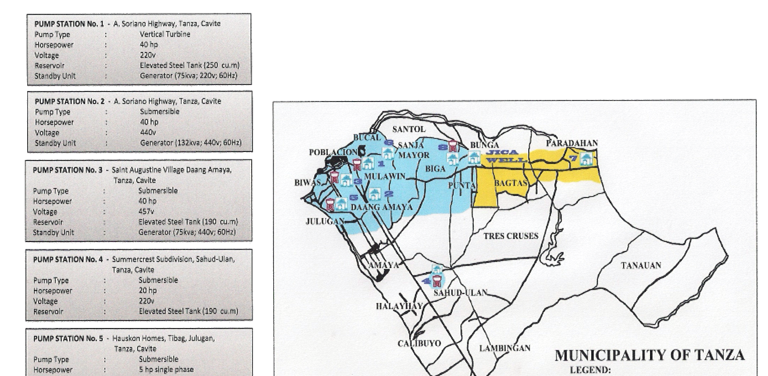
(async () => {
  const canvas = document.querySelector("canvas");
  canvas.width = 768;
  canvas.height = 376;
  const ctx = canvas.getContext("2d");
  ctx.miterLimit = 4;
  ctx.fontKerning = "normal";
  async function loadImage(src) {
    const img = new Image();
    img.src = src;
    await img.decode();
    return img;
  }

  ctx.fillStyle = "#ffffff";
  ctx.fillRect(0, 0, 768, 376);
  ctx.drawImage(await loadImage("img/1.png"), 24, 12, 734, 364);
})();
